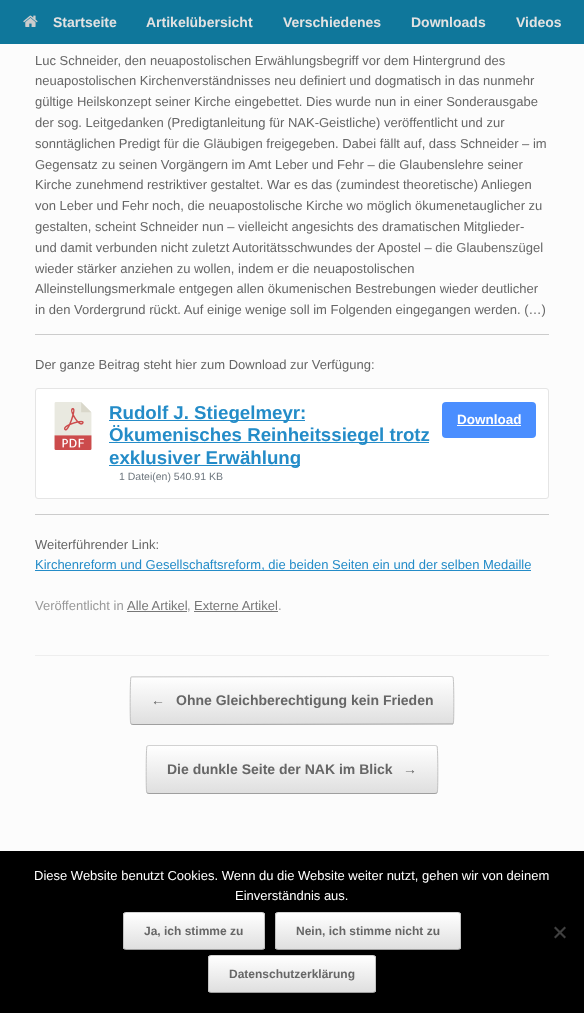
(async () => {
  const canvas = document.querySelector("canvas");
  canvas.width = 584;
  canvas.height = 1013;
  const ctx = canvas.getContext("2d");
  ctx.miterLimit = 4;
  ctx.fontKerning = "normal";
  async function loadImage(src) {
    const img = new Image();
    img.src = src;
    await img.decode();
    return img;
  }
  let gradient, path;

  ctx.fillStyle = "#fcfcfc";
  ctx.fillRect(0, 0, 584, 1013);
  ctx.fillStyle = "#0f779b";
  ctx.fillRect(0, 0, 584, 44);
  ctx.drawImage(await loadImage("img/1.png"), 23, 15, 15, 12);
  ctx.fillStyle = "#eeeeee";
  ctx.fillRect(35, 655, 514, 1);
  ctx.fillStyle = "#cccccc";
  ctx.fillRect(35, 334, 514, 1);
  ctx.fillStyle = "#ffffff";
  ctx.beginPath();
  ctx.roundRect(35.5, 388.5, 513, 110, 2.5);
  ctx.fill();
  ctx.strokeStyle = "#e5e5e5";
  ctx.stroke();
  ctx.drawImage(await loadImage("img/2.png"), 54, 402, 38, 48);
  for (const [x, y, w, h, color] of [
    [109, 420, 196, 1, "#248cc8"],
    [109, 442, 320, 1, "#248cc8"],
    [109, 465, 191, 1, "#248cc8"],
  ]) {
    ctx.fillStyle = color;
    ctx.fillRect(x, y, w, h);
  }
  ctx.fillStyle = "#4a8eff";
  ctx.beginPath();
  ctx.roundRect(442, 402, 94, 36, 4);
  ctx.fill();
  for (const [x, y, w, h, color] of [
    [457, 425, 64, 1, "#ffffff"],
    [35, 514, 514, 1, "#cccccc"],
    [35, 570, 496, 1, "#248cc8"],
    [127, 611, 60, 1, "#777777"],
    [194, 611, 84, 1, "#777777"],
  ]) {
    ctx.fillStyle = color;
    ctx.fillRect(x, y, w, h);
  }
  ctx.save();
  ctx.beginPath();
  ctx.roundRect(130, 676, 324, 49, 3);
  ctx.clip();
  gradient = ctx.createLinearGradient(131, 677, 131, 630);
  gradient.addColorStop(0, "#dfdfdf");
  gradient.addColorStop(1, "#ffffff");
  ctx.fillStyle = gradient;
  ctx.fillRect(130, 676, 324, 1);
  gradient = ctx.createLinearGradient(131, 724, 131, 677);
  gradient.addColorStop(0, "#dfdfdf");
  gradient.addColorStop(1, "#ffffff");
  ctx.fillStyle = gradient;
  ctx.fillRect(130, 677, 324, 47);
  gradient = ctx.createLinearGradient(131, 771, 131, 724);
  gradient.addColorStop(0, "#dfdfdf");
  gradient.addColorStop(1, "#ffffff");
  ctx.fillStyle = gradient;
  ctx.fillRect(130, 724, 324, 1);
  ctx.restore();
  path = new Path2D("M131 677H132L398 676.5H451L453 677");
  ctx.strokeStyle = "#d2d2d2";
  ctx.stroke(path);
  path = new Path2D("M453 677C454 678.5 454 718 453.5 722L453 724");
  ctx.strokeStyle = "#c3c3c3";
  ctx.stroke(path);
  path = new Path2D("M453 724H452L186 724.5H133L131 724");
  ctx.strokeStyle = "#9f9f9f";
  ctx.stroke(path);
  path = new Path2D("M131 724L130.5 722C130 718 130 678.5 131 677");
  ctx.strokeStyle = "#c3c3c3";
  ctx.stroke(path);
  ctx.save();
  ctx.beginPath();
  ctx.roundRect(146, 745, 292, 49, 3);
  ctx.clip();
  gradient = ctx.createLinearGradient(147, 793, 147, 746);
  gradient.addColorStop(0, "#dfdfdf");
  gradient.addColorStop(1, "#ffffff");
  ctx.fillStyle = gradient;
  ctx.fillRect(146, 746, 292, 47);
  ctx.restore();
  path = new Path2D("M147 746L149 745.5H435L437 746");
  ctx.strokeStyle = "#d2d2d2";
  ctx.stroke(path);
  path = new Path2D("M437 746C438 747.5 438 787 437.5 791L437 793");
  ctx.strokeStyle = "#c3c3c3";
  ctx.stroke(path);
  path = new Path2D("M437 793L435 793.5H149L147 793");
  ctx.strokeStyle = "#9f9f9f";
  ctx.stroke(path);
  path = new Path2D("M147 793L146.5 791C146 787 146 747.5 147 746");
  ctx.strokeStyle = "#c3c3c3";
  ctx.stroke(path);
  ctx.fillStyle = "#000000";
  ctx.fillRect(0, 851, 584, 162);
  ctx.save();
  ctx.beginPath();
  ctx.roundRect(123, 912, 142, 38, 3);
  ctx.clip();
  gradient = ctx.createLinearGradient(124, 949, 124, 913);
  gradient.addColorStop(0, "#dfdfdf");
  gradient.addColorStop(1, "#ffffff");
  ctx.fillStyle = gradient;
  ctx.fillRect(123, 913, 142, 36);
  ctx.restore();
  path = new Path2D("M124 913L126 912.5H262L264 913");
  ctx.strokeStyle = "#d2d2d2";
  ctx.stroke(path);
  path = new Path2D("M264 913C264 913.5 264.5 914.5 264.5 915V947C264.5 947.5 264 948.5 264 949");
  ctx.strokeStyle = "#c3c3c3";
  ctx.stroke(path);
  path = new Path2D("M264 949L262 949.5H126L124 949");
  ctx.strokeStyle = "#9f9f9f";
  ctx.stroke(path);
  path = new Path2D("M124 949C124 948.5 123.5 947.5 123.5 947V915C123.5 914.5 124 913.5 124 913");
  ctx.strokeStyle = "#c3c3c3";
  ctx.stroke(path);
  ctx.save();
  ctx.beginPath();
  ctx.roundRect(275, 912, 186, 38, 3);
  ctx.clip();
  gradient = ctx.createLinearGradient(276, 949, 276, 913);
  gradient.addColorStop(0, "#dfdfdf");
  gradient.addColorStop(1, "#ffffff");
  ctx.fillStyle = gradient;
  ctx.fillRect(275, 913, 186, 36);
  ctx.restore();
  path = new Path2D("M276 913L278 912.5H458L460 913");
  ctx.strokeStyle = "#d2d2d2";
  ctx.stroke(path);
  path = new Path2D("M460 913C460 913.5 460.5 914.5 460.5 915V947C460.5 947.5 460 948.5 460 949");
  ctx.strokeStyle = "#c3c3c3";
  ctx.stroke(path);
  path = new Path2D("M460 949L458 949.5H278L276 949");
  ctx.strokeStyle = "#9f9f9f";
  ctx.stroke(path);
  path = new Path2D("M276 949C276 948.5 275.5 947.5 275.5 947V915C275.5 914.5 276 913.5 276 913");
  ctx.strokeStyle = "#c3c3c3";
  ctx.stroke(path);
  ctx.save();
  ctx.beginPath();
  ctx.roundRect(208, 955, 168, 38, 3);
  ctx.clip();
  gradient = ctx.createLinearGradient(209, 992, 209, 956);
  gradient.addColorStop(0, "#dfdfdf");
  gradient.addColorStop(1, "#ffffff");
  ctx.fillStyle = gradient;
  ctx.fillRect(208, 956, 168, 36);
  ctx.restore();
  path = new Path2D("M209 956L211 955.5H373L375 956");
  ctx.strokeStyle = "#d2d2d2";
  ctx.stroke(path);
  path = new Path2D("M375 956C375 956.5 375.5 957.5 375.5 958V990C375.5 990.5 375 991.5 375 992");
  ctx.strokeStyle = "#c3c3c3";
  ctx.stroke(path);
  path = new Path2D("M375 992L373 992.5H211L209 992");
  ctx.strokeStyle = "#9f9f9f";
  ctx.stroke(path);
  path = new Path2D("M209 992C209 991.5 208.5 990.5 208.5 990V958C208.5 957.5 209 956.5 209 956");
  ctx.strokeStyle = "#c3c3c3";
  ctx.stroke(path);
  ctx.fillStyle = "#404040";
  path = new Path2D("M564.5 926.5L566 928L555.5 938.5L554 937Z");
  ctx.fill(path);
  path = new Path2D("M554 928L555.5 926.5L566 937L564.5 938.5Z");
  ctx.fill(path);
  ctx.font = "bold 14px Liberation Sans";
  ctx.fillStyle = "#e2e2e2";
  for (const [text, x, y] of [
    ["Startseite", 53, 27],
    ["Artikelübersicht", 146, 27],
    ["Verschiedenes", 283, 27],
    ["Downloads", 411, 27],
    ["Videos", 516, 27],
  ]) {
    ctx.fillText(text, x, y);
  }
  ctx.font = "13px Liberation Sans";
  ctx.fillStyle = "#666666";
  for (const [text, x, y] of [
    ["Luc Schneider, den neuapostolischen Erwählungsbegriff vor dem Hintergrund des", 35, 65],
    ["neuapostolischen Kirchenverständnisses neu definiert und dogmatisch in das nunmehr", 35, 85],
    ["gültige Heilskonzept seiner Kirche eingebettet. Dies wurde nun in einer Sonderausgabe", 35, 106],
    ["der sog. Leitgedanken (Predigtanleitung für NAK-Geistliche) veröffentlicht und zur", 35, 127],
    ["sonntäglichen Predigt für die Gläubigen freigegeben. Dabei fällt auf, dass Schneider – im", 35, 148],
    ["Gegensatz zu seinen Vorgängern im Amt Leber und Fehr – die Glaubenslehre seiner", 35, 169],
    ["Kirche zunehmend restriktiver gestaltet. War es das (zumindest theoretische) Anliegen", 35, 189],
    ["von Leber und Fehr noch, die neuapostolische Kirche wo möglich ökumenetauglicher zu", 35, 210],
    ["gestalten, scheint Schneider nun – vielleicht angesichts des dramatischen Mitglieder-", 35, 231],
    ["und damit verbunden nicht zuletzt Autoritätsschwundes der Apostel – die Glaubenszügel", 35, 252],
    ["wieder stärker anziehen zu wollen, indem er die neuapostolischen", 35, 273],
    ["Alleinstellungsmerkmale entgegen allen ökumenischen Bestrebungen wieder deutlicher", 35, 293],
    ["in den Vordergrund rückt. Auf einige wenige soll im Folgenden eingegangen werden. (…)", 35, 314],
    ["Der ganze Beitrag steht hier zum Download zur Verfügung:", 35, 369],
  ]) {
    ctx.fillText(text, x, y);
  }
  ctx.font = "bold 18.7px Liberation Sans";
  ctx.fillStyle = "#248cc8";
  for (const [text, x, y] of [
    ["Rudolf J. Stiegelmeyr:", 109, 419],
    ["Ökumenisches Reinheitssiegel trotz", 109, 441],
    ["exklusiver Erwählung", 109, 464],
  ]) {
    ctx.fillText(text, x, y);
  }
  ctx.font = "10.5px Liberation Sans";
  ctx.fillStyle = "#6c757d";
  ctx.fillText("1 Datei(en) 540.91 KB", 119, 480);
  ctx.font = "bold 13.5px Liberation Sans";
  ctx.fillStyle = "#ffffff";
  ctx.fillText("Download", 457, 424);
  ctx.font = "13px Liberation Sans";
  ctx.fillStyle = "#666666";
  ctx.fillText("Weiterführender Link:", 35, 549);
  ctx.fillStyle = "#248cc8";
  ctx.fillText("Kirchenreform und Gesellschaftsreform, die beiden Seiten ein und der selben Medaille", 35, 569);
  ctx.fillStyle = "#999999";
  ctx.fillText("Veröffentlicht in", 35, 610);
  ctx.fillStyle = "#777777";
  ctx.fillText("Alle Artikel", 127, 610);
  ctx.fillStyle = "#999999";
  ctx.fillText(",", 187, 610);
  ctx.fillStyle = "#777777";
  ctx.fillText("Externe Artikel", 194, 610);
  ctx.fillStyle = "#999999";
  ctx.fillText(".", 278, 610);
  ctx.font = "bold 14px Liberation Sans";
  ctx.fillStyle = "#666666";
  for (const [text, x, y] of [
    ["←", 151, 705],
    ["Ohne Gleichberechtigung kein Frieden", 176, 705],
    ["Die dunkle Seite der NAK im Blick", 167, 774],
    ["→", 403, 774],
  ]) {
    ctx.fillText(text, x, y);
  }
  ctx.font = "13px Liberation Sans";
  ctx.fillStyle = "#ffffff";
  ctx.fillText("Diese Website benutzt Cookies. Wenn du die Website weiter nutzt, gehen wir von deinem", 34, 880);
  ctx.fillText("Einverständnis aus.", 235, 900);
  ctx.font = "bold 12px Liberation Sans";
  ctx.fillStyle = "#666666";
  for (const [text, x, y] of [
    ["Ja, ich stimme zu", 144, 935],
    ["Nein, ich stimme nicht zu", 296, 935],
    ["Datenschutzerklärung", 229, 978],
  ]) {
    ctx.fillText(text, x, y);
  }
})();
